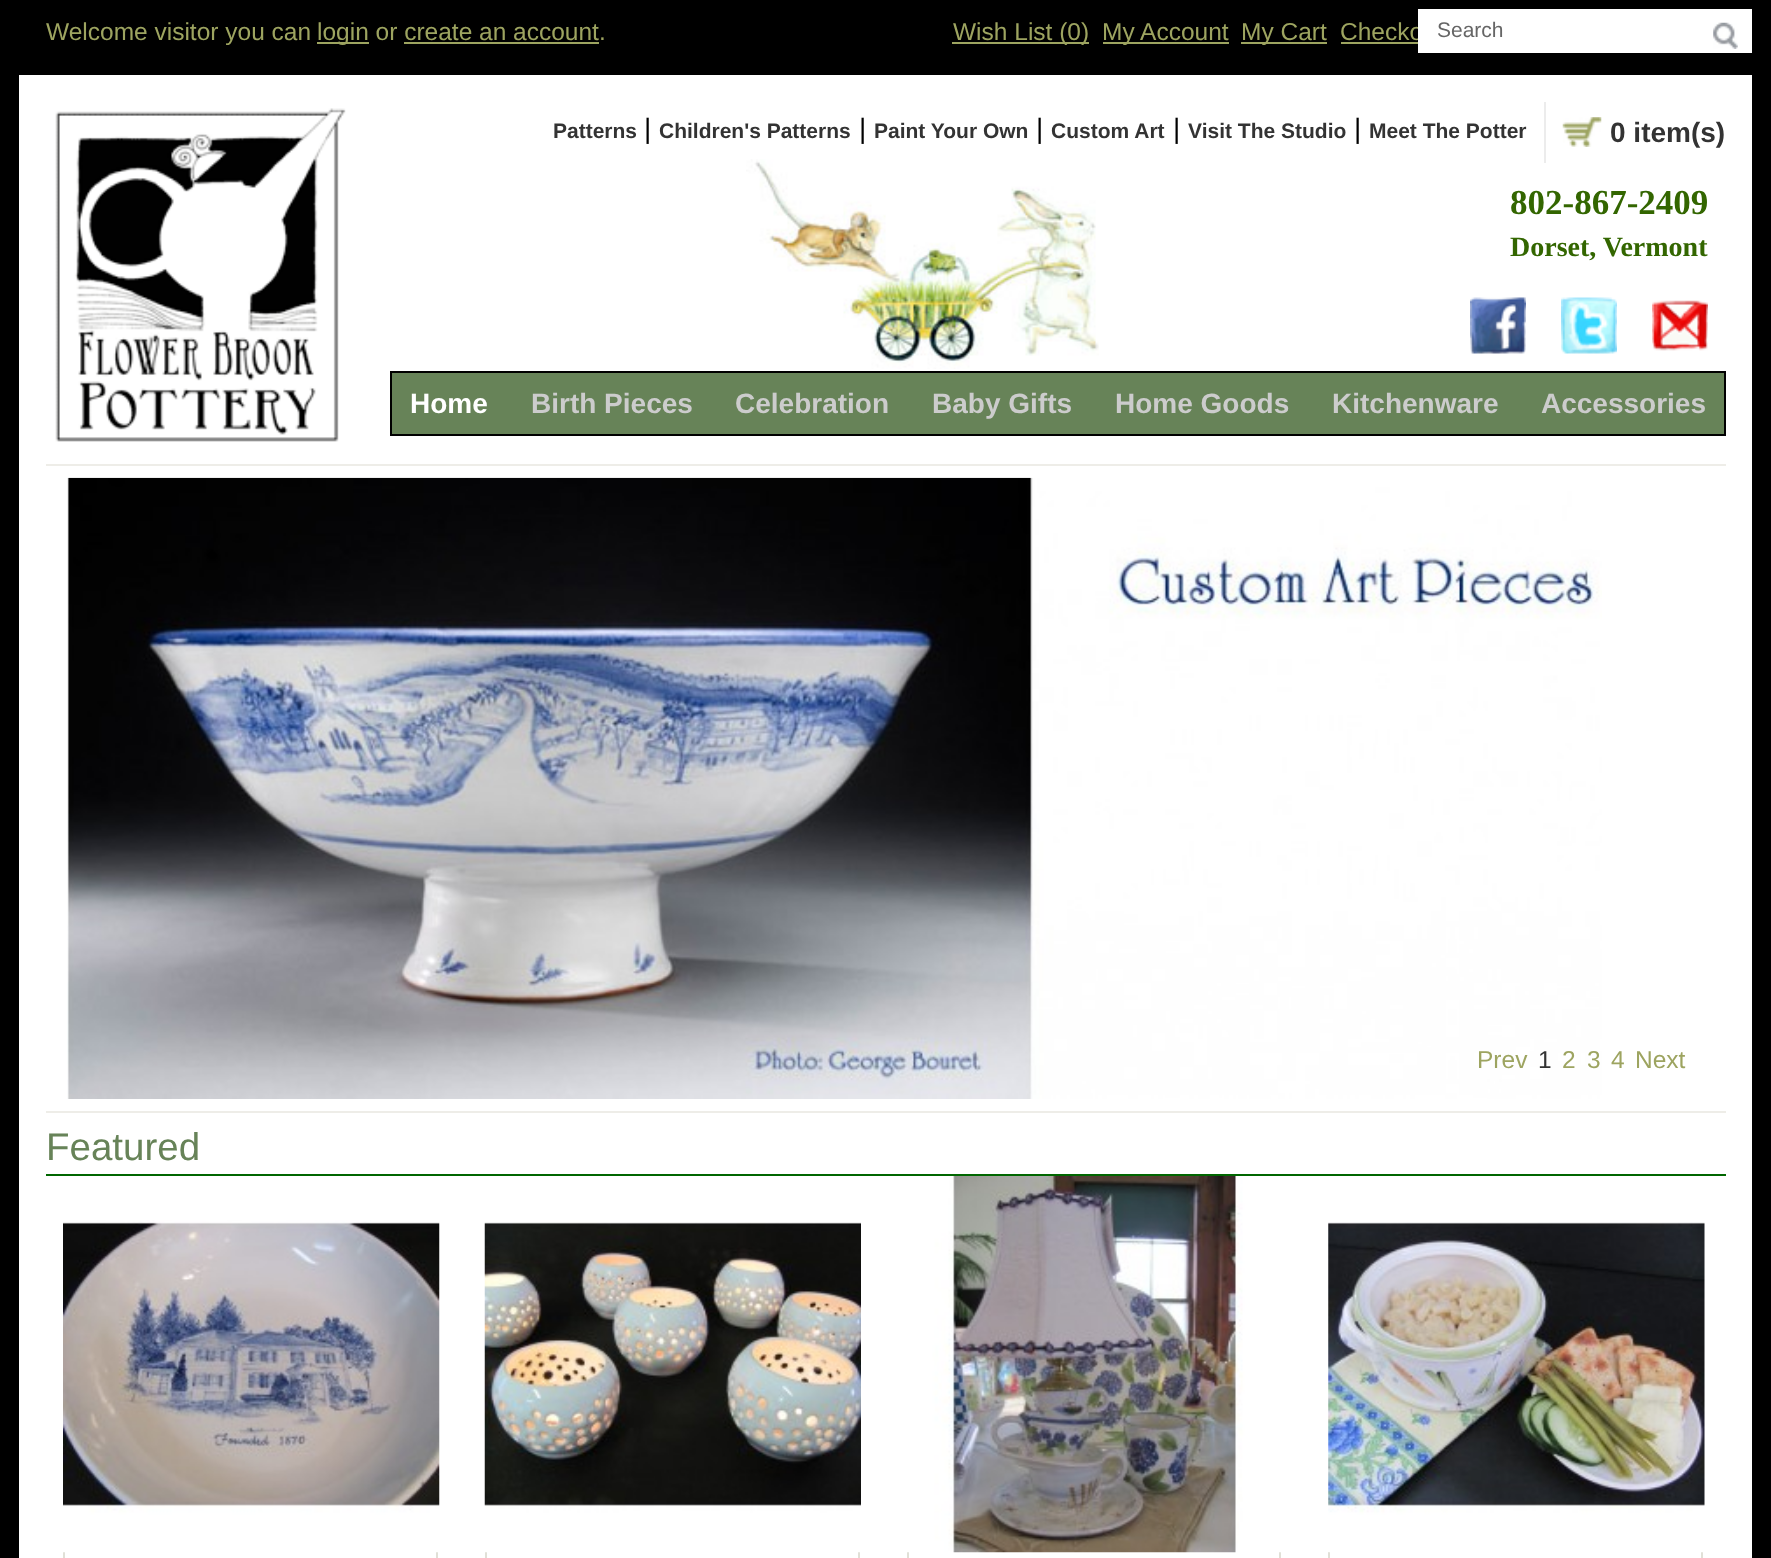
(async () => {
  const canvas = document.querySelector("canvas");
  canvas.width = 1771;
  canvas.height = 1558;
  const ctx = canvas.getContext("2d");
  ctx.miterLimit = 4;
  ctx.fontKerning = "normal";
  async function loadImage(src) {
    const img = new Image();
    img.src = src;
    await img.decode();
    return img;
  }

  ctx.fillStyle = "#000000";
  ctx.fillRect(0, 0, 1771, 1558);
  for (const [x, y, w, h, color] of [
    [317, 42, 52, 2, "#9da460"],
    [404, 42, 195, 2, "#9da460"],
    [952, 42, 137, 2, "#9da460"],
    [1103, 42, 126, 2, "#9da460"],
    [1241, 42, 86, 2, "#9da460"],
    [1341, 42, 77, 2, "#9da460"],
    [19, 75, 1733, 1483, "#ffffff"],
    [46, 464, 1680, 2, "#eeede8"],
  ]) {
    ctx.fillStyle = color;
    ctx.fillRect(x, y, w, h);
  }
  ctx.drawImage(await loadImage("img/2.png"), 55, 108, 291, 334);
  ctx.fillStyle = "#ececec";
  ctx.fillRect(1544, 102, 2, 61);
  ctx.drawImage(await loadImage("img/3.png"), 1562, 117, 40, 30);
  ctx.drawImage(await loadImage("img/4.png"), 746, 159, 353, 210);
  ctx.drawImage(await loadImage("img/5.png"), 1470, 297, 56, 57);
  ctx.drawImage(await loadImage("img/6.png"), 1561, 297, 56, 57);
  ctx.drawImage(await loadImage("img/7.png"), 1652, 300, 56, 51);
  ctx.fillStyle = "#678358";
  ctx.beginPath();
  ctx.rect(391, 372, 1334, 63);
  ctx.fill();
  ctx.strokeStyle = "#000000";
  ctx.lineWidth = 2;
  ctx.stroke();
  ctx.fillStyle = "#eeede8";
  ctx.fillRect(46, 1111, 1680, 2);
  ctx.drawImage(await loadImage("img/8.png"), 67, 477, 1535, 622);
  for (const [x, y, w, h, color] of [
    [46, 1174, 1680, 2, "#006600"],
    [436, 1552, 2, 6, "#e1e0d7"],
    [63, 1552, 2, 6, "#e1e0d7"],
  ]) {
    ctx.fillStyle = color;
    ctx.fillRect(x, y, w, h);
  }
  ctx.drawImage(await loadImage("img/9.png"), 63, 1220, 377, 333);
  ctx.fillRect(858, 1552, 2, 6);
  ctx.fillRect(485, 1552, 2, 6);
  ctx.drawImage(await loadImage("img/10.png"), 484, 1222, 377, 331);
  ctx.fillRect(1279, 1552, 2, 6);
  ctx.fillRect(907, 1552, 2, 6);
  ctx.drawImage(await loadImage("img/11.png"), 907, 1176, 374, 377);
  ctx.fillRect(1701, 1552, 2, 6);
  ctx.fillRect(1328, 1552, 2, 6);
  ctx.drawImage(await loadImage("img/12.png"), 1328, 1222, 377, 331);
  ctx.font = "24.5px Liberation Sans";
  ctx.fillStyle = "#9da460";
  for (const [text, x, y] of [
    ["Welcome visitor you can", 46, 40],
    ["login or create an account.", 317, 40],
    ["Wish List (0)", 953, 40],
    ["My Account", 1102, 40],
    ["My Cart", 1241, 40],
    ["Checko", 1340, 40],
  ]) {
    ctx.fillText(text, x, y);
  }
  ctx.fillStyle = "#ffffff";
  ctx.fillRect(1418, 9, 334, 44);
  ctx.font = "21px Liberation Sans";
  ctx.fillStyle = "#666666";
  ctx.fillText("Search", 1437, 37);
  ctx.drawImage(await loadImage("img/1.png"), 1713, 22, 25, 27);
  ctx.font = "bold 21px Liberation Sans";
  ctx.fillStyle = "#333333";
  ctx.fillText("Patterns", 553, 138);
  ctx.font = "28px Liberation Sans";
  ctx.fillStyle = "#000000";
  ctx.fillText("|", 644, 138);
  ctx.font = "bold 21px Liberation Sans";
  ctx.fillStyle = "#333333";
  ctx.fillText("Children's Patterns", 659, 138);
  ctx.font = "28px Liberation Sans";
  ctx.fillStyle = "#000000";
  ctx.fillText("|", 859, 138);
  ctx.font = "bold 21px Liberation Sans";
  ctx.fillStyle = "#333333";
  ctx.fillText("Paint Your Own", 874, 138);
  ctx.font = "28px Liberation Sans";
  ctx.fillStyle = "#000000";
  ctx.fillText("|", 1036, 138);
  ctx.font = "bold 21px Liberation Sans";
  ctx.fillStyle = "#333333";
  ctx.fillText("Custom Art", 1051, 138);
  ctx.font = "28px Liberation Sans";
  ctx.fillStyle = "#000000";
  ctx.fillText("|", 1173, 138);
  ctx.font = "bold 21px Liberation Sans";
  ctx.fillStyle = "#333333";
  ctx.fillText("Visit The Studio", 1188, 138);
  ctx.font = "28px Liberation Sans";
  ctx.fillStyle = "#000000";
  ctx.fillText("|", 1354, 138);
  ctx.font = "bold 21px Liberation Sans";
  ctx.fillStyle = "#333333";
  ctx.fillText("Meet The Potter", 1369, 138);
  ctx.font = "bold 28px Liberation Sans";
  ctx.fillText("0 item(s)", 1610, 142);
  ctx.font = "bold 35px Liberation Serif";
  ctx.fillStyle = "#336600";
  ctx.fillText("802-867-2409", 1510, 214);
  ctx.font = "bold 28px Liberation Serif";
  ctx.fillText("Dorset, Vermont", 1510, 256);
  ctx.font = "bold 28px Liberation Sans";
  ctx.fillStyle = "#ffffff";
  ctx.fillText("Home", 410, 413);
  ctx.fillStyle = "#cccccc";
  for (const [text, x, y] of [
    ["Birth Pieces", 531, 413],
    ["Celebration", 735, 413],
    ["Baby Gifts", 932, 413],
    ["Home Goods", 1115, 413],
    ["Kitchenware", 1332, 413],
    ["Accessories", 1541, 413],
  ]) {
    ctx.fillText(text, x, y);
  }
  ctx.font = "24.5px Liberation Sans";
  ctx.fillStyle = "#9da460";
  ctx.fillText("Prev", 1477, 1068);
  ctx.fillStyle = "#333333";
  ctx.fillText("1", 1538, 1068);
  ctx.fillStyle = "#9da460";
  for (const [text, x, y] of [
    ["2", 1562, 1068],
    ["3", 1587, 1068],
    ["4", 1611, 1068],
    ["Next", 1635, 1068],
  ]) {
    ctx.fillText(text, x, y);
  }
  ctx.font = "38.5px Liberation Sans";
  ctx.fillStyle = "#678358";
  ctx.fillText("Featured", 46, 1160);
})();
